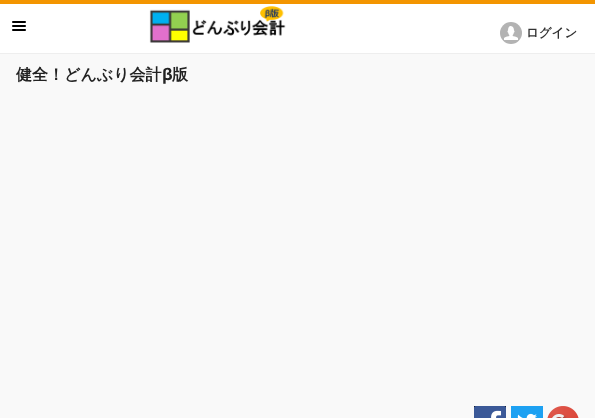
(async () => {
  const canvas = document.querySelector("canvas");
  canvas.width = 595;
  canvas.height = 418;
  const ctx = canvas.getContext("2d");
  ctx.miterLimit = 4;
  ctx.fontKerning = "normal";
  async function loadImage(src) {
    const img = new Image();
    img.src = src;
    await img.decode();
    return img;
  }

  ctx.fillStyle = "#f9f9f9";
  ctx.fillRect(0, 0, 595, 418);
  for (const [x, y, w, h, color] of [
    [0, 4, 595, 49, "#ffffff"],
    [0, 0, 595, 4, "#f39500"],
    [0, 53, 595, 1, "#eeeeee"],
  ]) {
    ctx.fillStyle = color;
    ctx.fillRect(x, y, w, h);
  }
  ctx.drawImage(await loadImage("img/1.png"), 12, 21, 14, 10);
  ctx.drawImage(await loadImage("img/2.png"), 149, 6, 137, 37);
  ctx.fillStyle = "#b3b3b3";
  ctx.beginPath();
  ctx.arc(511, 33, 11, 0, Math.PI * 2);
  ctx.fill();
  ctx.drawImage(await loadImage("img/3.png"), 504, 26, 14, 14);
  ctx.drawImage(await loadImage("img/4.png"), 474, 406, 32, 12);
  ctx.drawImage(await loadImage("img/5.png"), 511, 406, 32, 12);
  ctx.drawImage(await loadImage("img/6.png"), 547, 406, 32, 12);
  ctx.font = "bold 12.5px WenQuanYi Zen Hei";
  ctx.fillStyle = "#333333";
  ctx.fillText("ログイン", 526, 37);
  ctx.font = "bold 16px WenQuanYi Zen Hei";
  ctx.fillStyle = "#222222";
  ctx.fillText("健全！どんぶり会計", 16, 80);
  ctx.font = "bold 16px Open Sans";
  ctx.fillText("β", 162, 80);
  ctx.font = "bold 16px WenQuanYi Zen Hei";
  ctx.fillText("版", 172, 80);
})();
